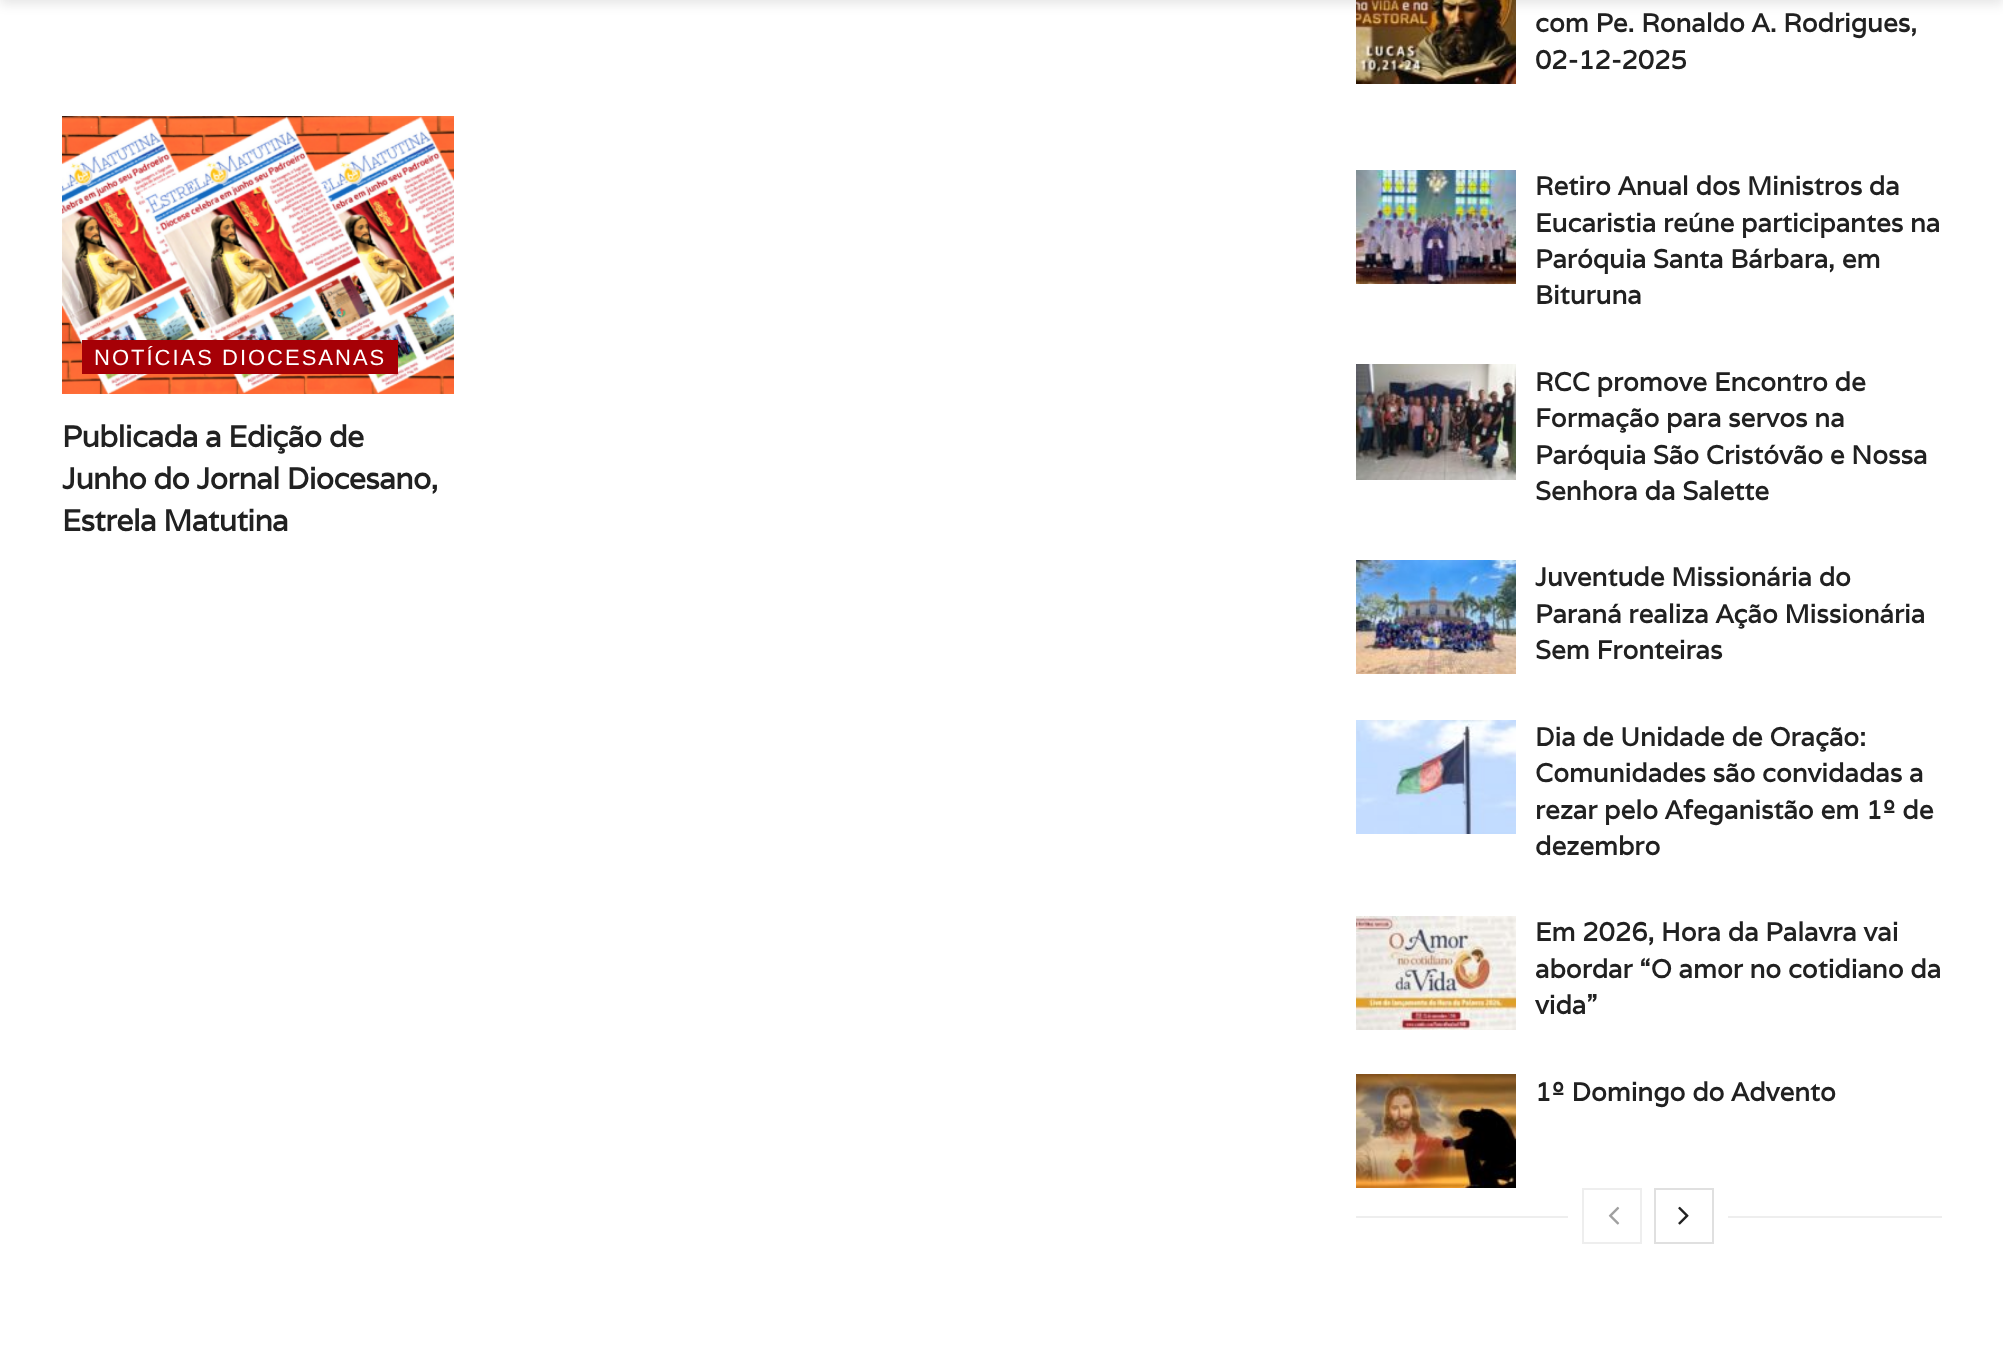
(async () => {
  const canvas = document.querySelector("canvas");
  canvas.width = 2003;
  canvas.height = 1370;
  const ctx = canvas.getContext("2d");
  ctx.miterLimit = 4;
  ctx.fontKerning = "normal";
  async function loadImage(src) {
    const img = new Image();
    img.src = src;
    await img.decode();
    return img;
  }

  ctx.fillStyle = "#ffffff";
  ctx.fillRect(0, 0, 2003, 1370);
  ctx.drawImage(await loadImage("img/2.png"), 1356, 0, 160, 84);
  ctx.fillStyle = "rgba(0, 0, 0, 0.1)";
  ctx.filter = "blur(6px)";
  ctx.beginPath();
  ctx.rect(0, -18, 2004, 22);
  ctx.fill();
  ctx.filter = "none";
  ctx.drawImage(await loadImage("img/1.png"), 62, 116, 392, 278);
  ctx.fillStyle = "#a60006";
  ctx.fillRect(82, 340, 316, 34);
  ctx.drawImage(await loadImage("img/3.png"), 1356, 170, 160, 114);
  ctx.drawImage(await loadImage("img/4.png"), 1356, 364, 160, 116);
  ctx.drawImage(await loadImage("img/5.png"), 1356, 560, 160, 114);
  ctx.drawImage(await loadImage("img/6.png"), 1356, 720, 160, 114);
  ctx.drawImage(await loadImage("img/7.png"), 1356, 916, 160, 114);
  ctx.drawImage(await loadImage("img/8.png"), 1356, 1074, 160, 114);
  ctx.fillStyle = "#eeeeee";
  ctx.fillRect(1356, 1216, 212, 2);
  ctx.strokeStyle = "#eeeeee";
  ctx.lineWidth = 2;
  ctx.strokeRect(1583, 1189, 58, 54);
  ctx.drawImage(await loadImage("img/9.png"), 1608, 1206, 12, 19);
  ctx.strokeStyle = "#e0e0e0";
  ctx.strokeRect(1655, 1189, 58, 54);
  ctx.drawImage(await loadImage("img/10.png"), 1678, 1206, 11, 19);
  ctx.fillRect(1728, 1216, 214, 2);
  ctx.letterSpacing = "2px";
  ctx.font = "22px Liberation Sans";
  ctx.fillStyle = "#ffffff";
  ctx.fillText("NOTÍCIAS DIOCESANAS", 94, 365);
  ctx.letterSpacing = "-0.6px";
  ctx.font = "bold 30px Varela";
  ctx.fillStyle = "#212121";
  for (const [text, x, y] of [
    ["Publicada a Edição de", 62, 447],
    ["Junho do Jornal Diocesano,", 62, 489],
    ["Estrela Matutina", 62, 531],
  ]) {
    ctx.fillText(text, x, y);
  }
  ctx.letterSpacing = "0px";
  ctx.font = "bold 26px Varela";
  for (const [text, x, y] of [
    ["com Pe. Ronaldo A. Rodrigues,", 1535, 32],
    ["02-12-2025", 1535, 69],
    ["Retiro Anual dos Ministros da", 1535, 195],
    ["Eucaristia reúne participantes na", 1535, 232],
    ["Paróquia Santa Bárbara, em", 1535, 268],
    ["Bituruna", 1535, 304],
    ["RCC promove Encontro de", 1535, 391],
    ["Formação para servos na", 1535, 427],
    ["Paróquia São Cristóvão e Nossa", 1535, 464],
    ["Senhora da Salette", 1535, 500],
    ["Juventude Missionária do", 1535, 586],
    ["Paraná realiza Ação Missionária", 1535, 623],
    ["Sem Fronteiras", 1535, 659],
    ["Dia de Unidade de Oração:", 1535, 746],
    ["Comunidades são convidadas a", 1535, 782],
    ["rezar pelo Afeganistão em 1º de", 1535, 819],
    ["dezembro", 1535, 855],
    ["Em 2026, Hora da Palavra vai", 1535, 941],
    ["abordar “O amor no cotidiano da", 1535, 978],
    ["vida”", 1535, 1014],
    ["1º Domingo do Advento", 1535, 1101],
  ]) {
    ctx.fillText(text, x, y);
  }
})();
